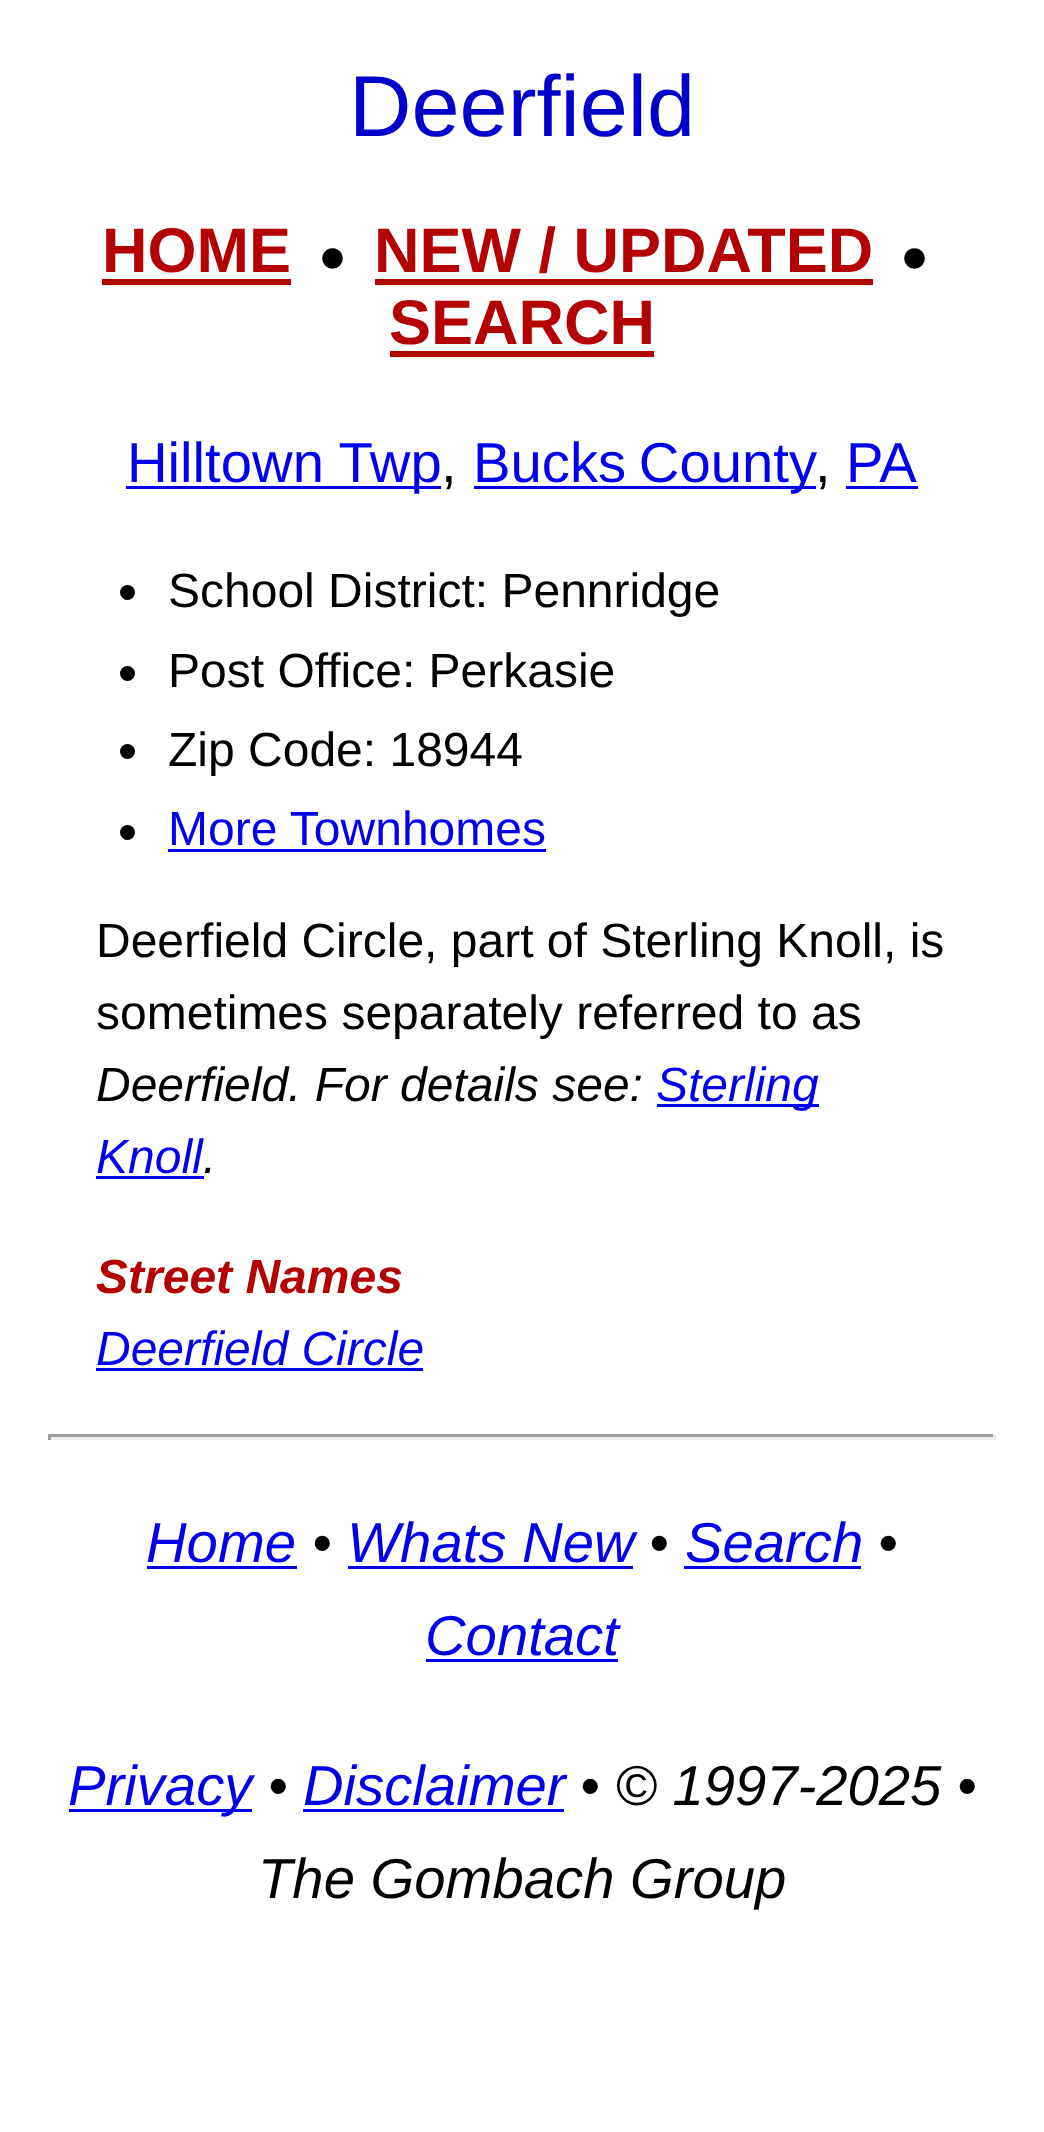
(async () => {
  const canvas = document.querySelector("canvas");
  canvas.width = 1044;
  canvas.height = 2132;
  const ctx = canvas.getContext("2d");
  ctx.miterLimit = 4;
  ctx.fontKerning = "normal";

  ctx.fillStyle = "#ffffff";
  ctx.fillRect(0, 0, 1044, 2132);
  for (const [x, y, w, h, color] of [
    [102, 279, 189, 6, "#b40101"],
    [375, 279, 498, 6, "#b40101"],
    [390, 351, 264, 6, "#b40101"],
    [126, 486, 315, 3, "#0000ee"],
    [474, 486, 342, 3, "#0000ee"],
    [846, 486, 72, 3, "#0000ee"],
  ]) {
    ctx.fillStyle = color;
    ctx.fillRect(x, y, w, h);
  }
  ctx.fillStyle = "#000000";
  ctx.beginPath();
  ctx.arc(127.5, 592.5, 7.5, 0, Math.PI * 2);
  ctx.fill();
  ctx.beginPath();
  ctx.arc(127.5, 673.5, 7.5, 0, Math.PI * 2);
  ctx.fill();
  ctx.beginPath();
  ctx.arc(127.5, 751.5, 7.5, 0, Math.PI * 2);
  ctx.fill();
  ctx.beginPath();
  ctx.arc(127.5, 832.5, 7.5, 0, Math.PI * 2);
  ctx.fill();
  for (const [x, y, w, h, color] of [
    [168, 849, 378, 3, "#0000ee"],
    [657, 1104, 162, 3, "#0000ee"],
    [96, 1176, 108, 3, "#0000ee"],
    [96, 1368, 327, 3, "#0000ee"],
    [48, 1434, 948, 3, "#9f9f9f"],
    [993, 1434, 3, 6, "#eeeeee"],
    [48, 1437, 948, 3, "#eeeeee"],
    [48, 1434, 3, 6, "#9f9f9f"],
    [147, 1566, 150, 3, "#0000ee"],
    [348, 1566, 285, 3, "#0000ee"],
    [684, 1566, 177, 3, "#0000ee"],
    [426, 1659, 192, 3, "#0000ee"],
    [69, 1809, 183, 3, "#0000ee"],
    [303, 1809, 261, 3, "#0000ee"],
  ]) {
    ctx.fillStyle = color;
    ctx.fillRect(x, y, w, h);
  }
  ctx.font = "86.5px Liberation Sans";
  ctx.fillStyle = "#0000cc";
  ctx.fillText("Deerfield", 349, 136);
  ctx.font = "bold 63px Liberation Sans";
  ctx.fillStyle = "#b40101";
  ctx.fillText("HOME", 102, 272);
  ctx.font = "48px Liberation Sans";
  ctx.fillStyle = "#000000";
  ctx.fillText("●", 318, 272);
  ctx.font = "bold 63px Liberation Sans";
  ctx.fillStyle = "#b40101";
  ctx.fillText("NEW / UPDATED", 374, 272);
  ctx.font = "48px Liberation Sans";
  ctx.fillStyle = "#000000";
  ctx.fillText("●", 900, 272);
  ctx.font = "bold 63px Liberation Sans";
  ctx.fillStyle = "#b40101";
  ctx.fillText("SEARCH", 389, 344);
  ctx.font = "56.25px Liberation Sans";
  ctx.fillStyle = "#0000ee";
  ctx.fillText("Hilltown Twp", 127, 482);
  ctx.fillStyle = "#000000";
  ctx.fillText(",", 441, 482);
  ctx.wordSpacing = "-3px";
  ctx.fillStyle = "#0000ee";
  ctx.fillText("Bucks County", 473, 482);
  ctx.wordSpacing = "0px";
  ctx.fillStyle = "#000000";
  ctx.fillText(",", 815, 482);
  ctx.fillStyle = "#0000ee";
  ctx.fillText("PA", 846, 482);
  ctx.font = "48px Liberation Sans";
  ctx.fillStyle = "#000000";
  for (const [text, x, y] of [
    ["School District: Pennridge", 168, 607],
    ["Post Office: Perkasie", 168, 687],
    ["Zip Code: 18944", 168, 766],
  ]) {
    ctx.fillText(text, x, y);
  }
  ctx.fillStyle = "#0000ee";
  ctx.fillText("More Townhomes", 168, 845);
  ctx.fillStyle = "#000000";
  ctx.fillText("Deerfield Circle, part of Sterling Knoll, is", 96, 957);
  ctx.fillText("sometimes separately referred to as", 96, 1029);
  ctx.font = "italic 48px Liberation Sans";
  ctx.fillText("Deerfield. For details see:", 96, 1101);
  ctx.fillStyle = "#0000ee";
  ctx.fillText("Sterling", 656, 1101);
  ctx.fillText("Knoll", 96, 1173);
  ctx.fillStyle = "#000000";
  ctx.fillText(".", 203, 1173);
  ctx.font = "italic bold 48px Liberation Sans";
  ctx.fillStyle = "#b40101";
  ctx.fillText("Street Names", 96, 1293);
  ctx.font = "italic 48px Liberation Sans";
  ctx.fillStyle = "#0000ee";
  ctx.fillText("Deerfield Circle", 96, 1365);
  ctx.font = "italic 56.25px Liberation Sans";
  ctx.fillText("Home", 146, 1562);
  ctx.fillStyle = "#000000";
  ctx.fillText("•", 312, 1562);
  ctx.fillStyle = "#0000ee";
  ctx.fillText("Whats New", 347, 1562);
  ctx.fillStyle = "#000000";
  ctx.fillText("•", 649, 1562);
  ctx.fillStyle = "#0000ee";
  ctx.fillText("Search", 685, 1562);
  ctx.fillStyle = "#000000";
  ctx.fillText("•", 878, 1562);
  ctx.fillStyle = "#0000ee";
  ctx.fillText("Contact", 425, 1655);
  ctx.fillText("Privacy", 68, 1805);
  ctx.fillStyle = "#000000";
  ctx.fillText("•", 268, 1805);
  ctx.fillStyle = "#0000ee";
  ctx.fillText("Disclaimer", 303, 1805);
  ctx.fillStyle = "#000000";
  ctx.fillText("• © 1997-2025 •", 580, 1805);
  ctx.fillText("The Gombach Group", 258, 1898);
})();
